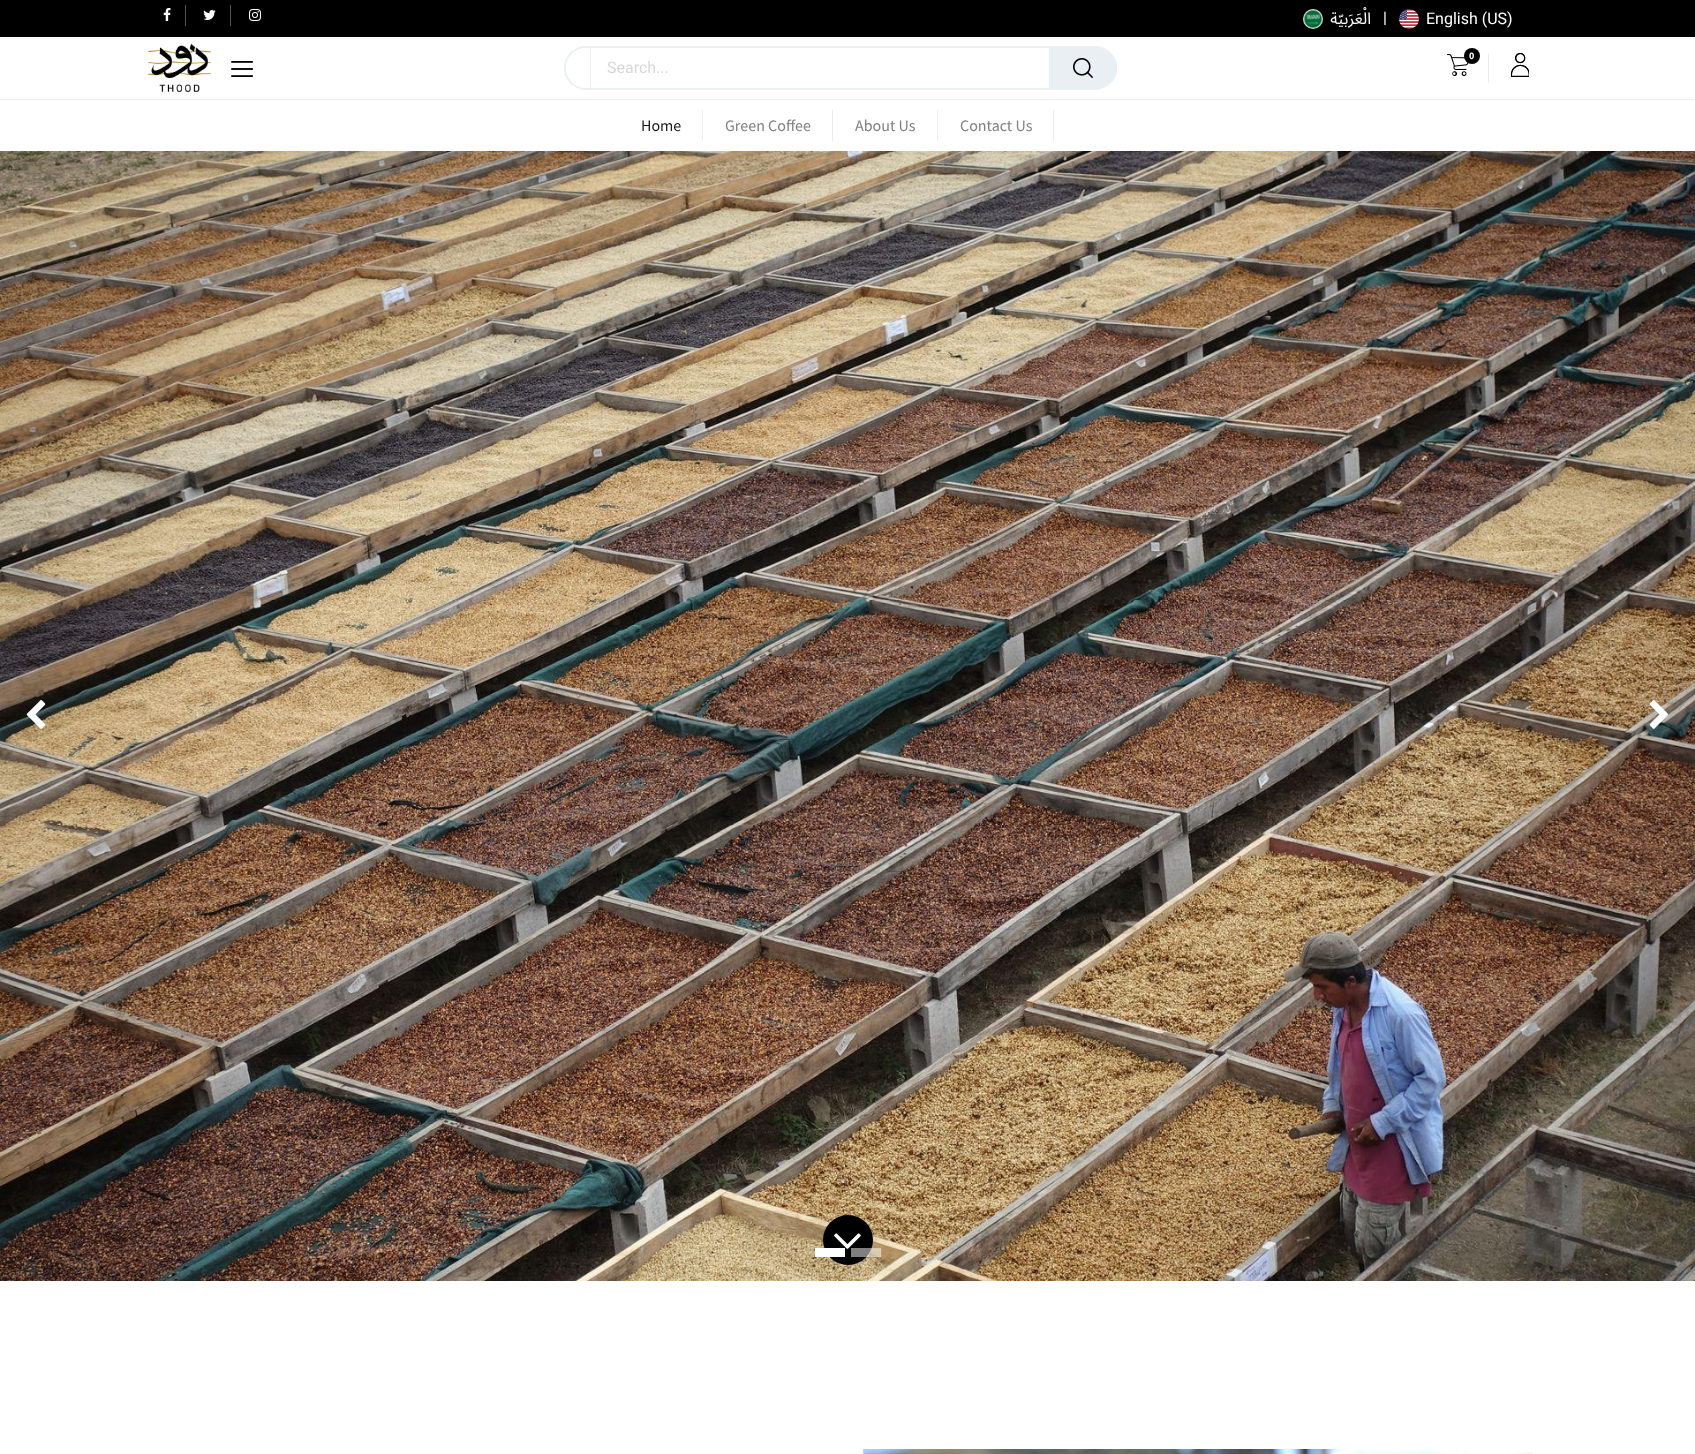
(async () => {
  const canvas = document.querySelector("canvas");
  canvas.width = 1695;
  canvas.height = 1454;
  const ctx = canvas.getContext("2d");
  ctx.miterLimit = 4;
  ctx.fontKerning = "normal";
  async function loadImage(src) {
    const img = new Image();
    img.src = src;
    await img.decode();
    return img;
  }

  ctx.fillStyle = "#ffffff";
  ctx.fillRect(0, 0, 1695, 1454);
  ctx.fillStyle = "#000000";
  ctx.fillRect(0, 0, 1695, 37);
  ctx.fillStyle = "#555555";
  ctx.fillRect(185, 5, 1, 21);
  ctx.drawImage(await loadImage("img/1.png"), 163, 8, 8, 13);
  ctx.fillRect(230, 5, 1, 21);
  ctx.drawImage(await loadImage("img/2.png"), 203, 10, 13, 10);
  ctx.drawImage(await loadImage("img/3.png"), 249, 9, 12, 12);
  ctx.drawImage(await loadImage("img/4.png"), 1303, 9, 20, 20);
  ctx.drawImage(await loadImage("img/5.png"), 1399, 9, 20, 20);
  ctx.drawImage(await loadImage("img/6.png"), 148, 43, 63, 50);
  ctx.drawImage(await loadImage("img/7.png"), 231, 61, 22, 16);
  ctx.fillStyle = "#ededed";
  ctx.fillRect(1488, 54, 1, 29);
  ctx.drawImage(await loadImage("img/8.png"), 1447, 54, 22, 22);
  ctx.fillStyle = "#000000";
  ctx.beginPath();
  ctx.arc(1472, 56, 8, 0, Math.PI * 2);
  ctx.fill();
  ctx.drawImage(await loadImage("img/9.png"), 1511, 53, 18, 24);
  ctx.drawImage(await loadImage("img/10.png"), 1511, 53, 18, 24);
  ctx.beginPath();
  ctx.roundRect(565, 47, 551, 42, 21);
  ctx.strokeStyle = "#eaeff3";
  ctx.lineWidth = 2;
  ctx.stroke();
  ctx.fillStyle = "#ffffff";
  ctx.beginPath();
  ctx.roundRect(566, 48, 24, 40, [20, 0, 0, 20]);
  ctx.fill();
  ctx.fillStyle = "#ededed";
  ctx.fillRect(590, 48, 1, 40);
  ctx.fillStyle = "#ffffff";
  ctx.beginPath();
  ctx.roundRect(591, 48, 525, 40, [0, 20, 20, 0]);
  ctx.fill();
  ctx.fillStyle = "#eaeff3";
  ctx.beginPath();
  ctx.roundRect(1049, 48, 68, 40, [0, 20, 20, 0]);
  ctx.fill();
  ctx.drawImage(await loadImage("img/11.png"), 1073, 58, 20, 20);
  for (const [x, y, w, h, color] of [
    [0, 99, 1695, 1, "#ededed"],
    [702, 110, 1, 31, "#ededed"],
    [832, 110, 1, 31, "#ededed"],
    [937, 110, 1, 31, "#ededed"],
    [1053, 110, 1, 31, "#ededed"],
  ]) {
    ctx.fillStyle = color;
    ctx.fillRect(x, y, w, h);
  }
  ctx.drawImage(await loadImage("img/12.png"), 0, 151, 1695, 1130);
  ctx.drawImage(await loadImage("img/13.png"), 26, 700, 20, 29);
  ctx.drawImage(await loadImage("img/14.png"), 1649, 700, 20, 29);
  ctx.fillStyle = "#000000";
  ctx.beginPath();
  ctx.arc(848, 1240, 25, 0, Math.PI * 2);
  ctx.fill();
  ctx.drawImage(await loadImage("img/15.png"), 834, 1233, 27, 16);
  ctx.fillStyle = "#ffffff";
  ctx.fillRect(815, 1248, 30, 9);
  ctx.fillStyle = "rgba(255, 255, 255, 0.5)";
  ctx.fillRect(851, 1248, 30, 9);
  ctx.drawImage(await loadImage("img/16.png"), 862, 1449, 671, 5);
  ctx.direction = "rtl";
  ctx.font = "16px Noto Sans Arabic";
  ctx.fillStyle = "#ffffff";
  ctx.fillText("الْعَرَبيّة", 1371, 24);
  ctx.direction = "ltr";
  ctx.font = "16px Roboto";
  ctx.fillText("|", 1383, 23);
  ctx.fillText("English (US)", 1426, 24);
  ctx.font = "bold 10px Source Sans Pro";
  ctx.fillText("0", 1469, 59);
  ctx.font = "16px Roboto";
  ctx.fillStyle = "#d8d8d8";
  ctx.fillText("Search...", 607, 73);
  ctx.font = "16px Source Sans Pro";
  ctx.fillStyle = "#1a1a1a";
  ctx.fillText("Home", 641, 131);
  ctx.fillStyle = "#808080";
  for (const [text, x, y] of [
    ["Green Coffee", 725, 131],
    ["About Us", 855, 131],
    ["Contact Us", 960, 131],
  ]) {
    ctx.fillText(text, x, y);
  }
})();
